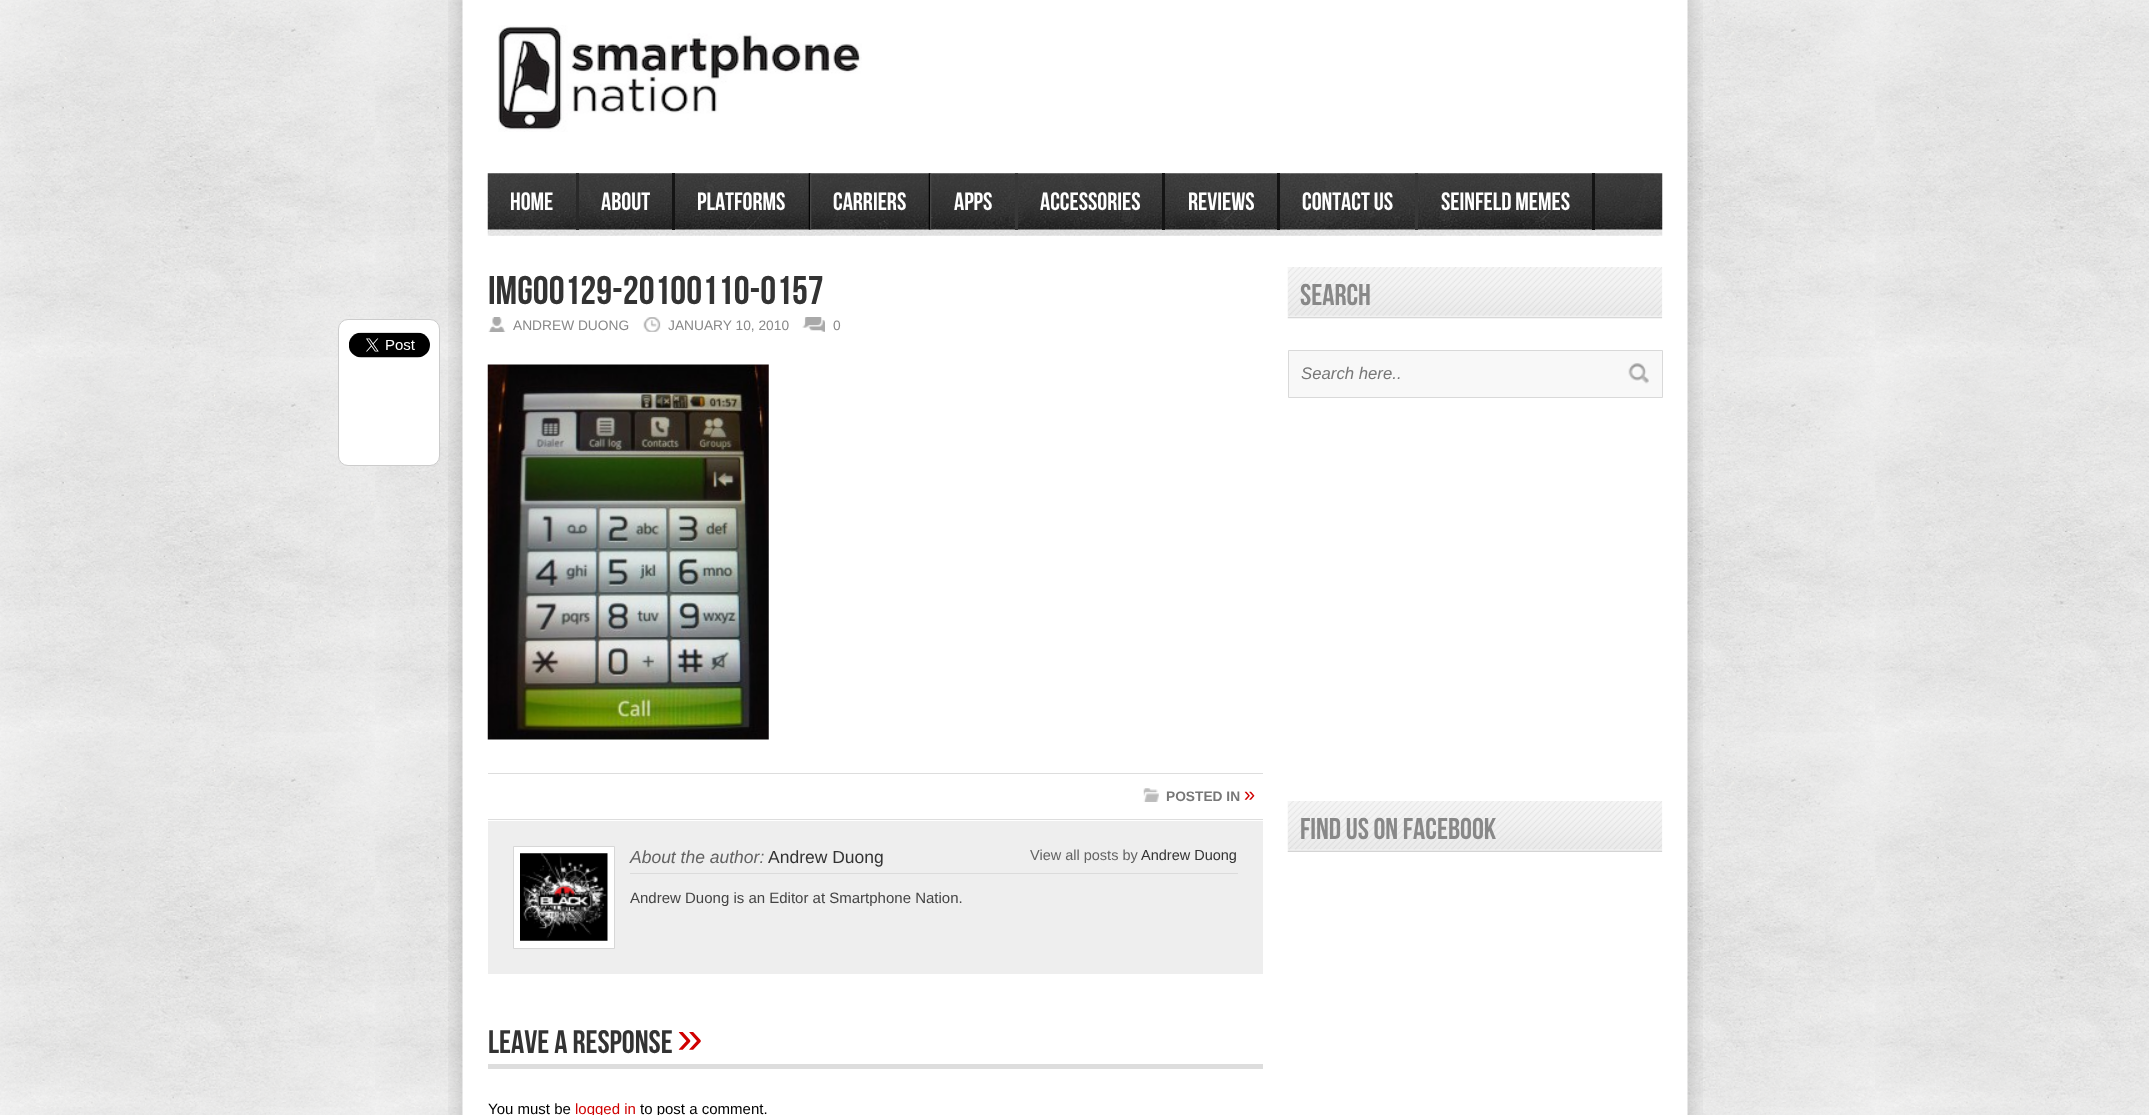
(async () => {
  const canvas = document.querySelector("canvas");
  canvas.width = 2149;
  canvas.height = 1115;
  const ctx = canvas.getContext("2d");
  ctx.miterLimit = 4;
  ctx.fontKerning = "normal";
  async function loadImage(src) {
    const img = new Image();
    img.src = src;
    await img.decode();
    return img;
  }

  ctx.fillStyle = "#f6f6f6";
  ctx.fillRect(0, 0, 2149, 1115);
  ctx.drawImage(await loadImage("img/1.png"), 0, 0, 2149, 1115);
  ctx.drawImage(await loadImage("img/2.png"), 448, 0, 1255, 1115);
  ctx.drawImage(await loadImage("img/3.png"), 498, 25, 364, 107);
  ctx.drawImage(await loadImage("img/4.png"), 487, 173, 1176, 63);
  ctx.fillStyle = "#292929";
  ctx.fillRect(576, 173, 3, 57);
  ctx.fillStyle = "#141414";
  ctx.fillRect(672, 173, 3, 57);
  ctx.drawImage(await loadImage("img/5.png"), 808, 173, 4, 57);
  ctx.drawImage(await loadImage("img/6.png"), 928, 173, 4, 57);
  for (const [x, y, w, h, color] of [
    [1015, 173, 3, 57, "#383838"],
    [1162, 173, 3, 57, "#141414"],
    [1277, 173, 3, 57, "#141414"],
    [1415, 173, 3, 57, "#383838"],
    [1592, 173, 3, 57, "#141414"],
  ]) {
    ctx.fillStyle = color;
    ctx.fillRect(x, y, w, h);
  }
  ctx.drawImage(await loadImage("img/7.png"), 488, 317, 18, 15);
  ctx.drawImage(await loadImage("img/8.png"), 643, 317, 18, 15);
  ctx.drawImage(await loadImage("img/9.png"), 802, 317, 23, 15);
  ctx.fillStyle = "#ffffff";
  ctx.beginPath();
  ctx.roundRect(338.5, 319.5, 101, 146, 9.5);
  ctx.fill();
  ctx.strokeStyle = "#cccccc";
  ctx.stroke();
  ctx.drawImage(await loadImage("img/10.png"), 349, 332, 81, 26);
  ctx.drawImage(await loadImage("img/11.png"), 487, 364, 282, 376);
  ctx.fillStyle = "#dddddd";
  ctx.fillRect(488, 773, 775, 1);
  ctx.fillRect(488, 819, 775, 1);
  ctx.drawImage(await loadImage("img/12.png"), 1143, 788, 16, 14);
  ctx.fillStyle = "#eeeeee";
  ctx.fillRect(488, 821, 775, 153);
  ctx.fillStyle = "#ffffff";
  ctx.beginPath();
  ctx.rect(513.5, 846.5, 101, 102);
  ctx.fill();
  ctx.strokeStyle = "#d7d7d7";
  ctx.stroke();
  ctx.drawImage(await loadImage("img/13.png"), 520, 853, 88, 88);
  ctx.fillStyle = "#dbdbdb";
  ctx.fillRect(630, 873, 608, 1);
  ctx.fillStyle = "#dddddd";
  ctx.fillRect(488, 1064, 775, 5);
  ctx.drawImage(await loadImage("img/14.png"), 1287, 267, 376, 52);
  ctx.fillStyle = "#f8f8f8";
  ctx.beginPath();
  ctx.rect(1288.5, 350.5, 374, 47);
  ctx.fill();
  ctx.strokeStyle = "#d9d9d9";
  ctx.stroke();
  ctx.drawImage(await loadImage("img/15.png"), 1628, 363, 21, 21);
  ctx.drawImage(await loadImage("img/16.png"), 1287, 801, 376, 51);
  ctx.font = "25px Bebas Neue";
  ctx.fillStyle = "#ffffff";
  for (const [text, x, y] of [
    ["Home", 510, 210],
    ["About", 601, 210],
    ["Platforms", 697, 210],
    ["Carriers", 833, 210],
    ["Apps", 954, 210],
    ["Accessories", 1040, 210],
    ["Reviews", 1188, 210],
    ["Contact Us", 1302, 210],
    ["Seinfeld Memes", 1441, 210],
  ]) {
    ctx.fillText(text, x, y);
  }
  ctx.font = "40px Bebas Neue";
  ctx.fillStyle = "#333333";
  ctx.fillText("IMG00129-20100110-0157", 488, 304);
  ctx.font = "13.75px Liberation Sans";
  ctx.fillStyle = "#888888";
  for (const [text, x, y] of [
    ["ANDREW DUONG", 513, 330],
    ["JANUARY 10, 2010", 668, 330],
    ["0", 833, 330],
  ]) {
    ctx.fillText(text, x, y);
  }
  ctx.font = "bold 13.75px Liberation Sans";
  ctx.fillStyle = "#777777";
  ctx.fillText("POSTED IN", 1166, 801);
  ctx.font = "20px Liberation Sans";
  ctx.fillStyle = "#d00000";
  ctx.fillText("»", 1244, 801);
  ctx.font = "italic 17.5px Liberation Sans";
  ctx.fillStyle = "#636363";
  ctx.fillText("About the author:", 630, 863);
  ctx.font = "17.5px Liberation Sans";
  ctx.fillStyle = "#333333";
  ctx.fillText("Andrew Duong", 768, 863);
  ctx.font = "14.5px Liberation Sans";
  ctx.fillStyle = "#636363";
  ctx.fillText("View all posts by", 1030, 860);
  ctx.fillStyle = "#333333";
  ctx.fillText("Andrew Duong", 1141, 860);
  ctx.font = "15px Liberation Sans";
  ctx.fillStyle = "#444444";
  ctx.fillText("Andrew Duong is an Editor at Smartphone Nation.", 630, 903);
  ctx.font = "32.5px Bebas Neue";
  ctx.fillStyle = "#333333";
  ctx.fillText("Leave A Response", 488, 1053);
  ctx.font = "46px Liberation Sans";
  ctx.fillStyle = "#d00000";
  ctx.fillText("»", 677, 1053);
  ctx.font = "15px Liberation Sans";
  ctx.fillStyle = "#000000";
  ctx.fillText("You must be", 488, 1114);
  ctx.fillStyle = "#d00000";
  ctx.fillText("logged in", 575, 1114);
  ctx.fillStyle = "#000000";
  ctx.fillText("to post a comment.", 640, 1114);
  ctx.font = "30px Bebas Neue";
  ctx.fillStyle = "#888888";
  ctx.fillText("Search", 1300, 305);
  ctx.font = "italic 16.75px Liberation Sans";
  ctx.fillStyle = "#777777";
  ctx.fillText("Search here..", 1301, 379);
  ctx.font = "30px Bebas Neue";
  ctx.fillStyle = "#888888";
  ctx.fillText("Find us on Facebook", 1300, 839);
})();
